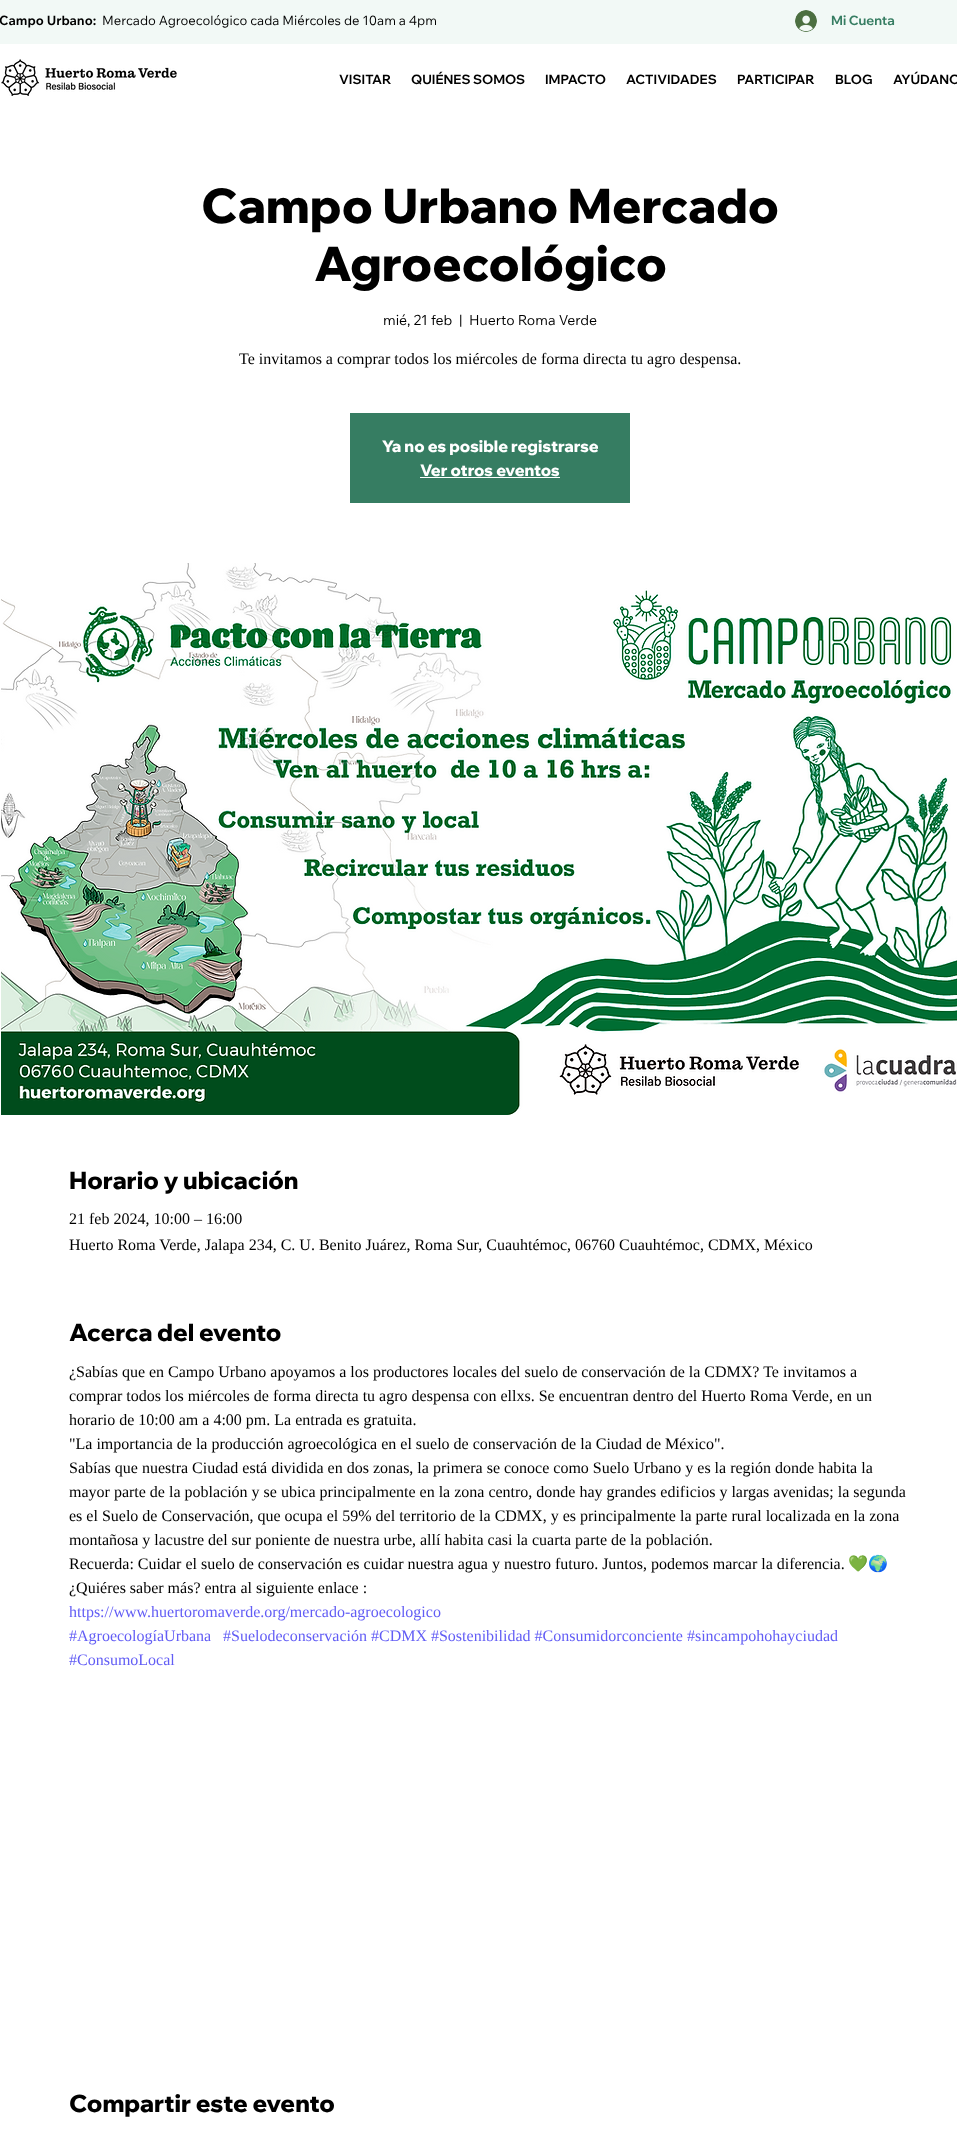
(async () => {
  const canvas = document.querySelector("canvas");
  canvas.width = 957;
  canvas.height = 2137;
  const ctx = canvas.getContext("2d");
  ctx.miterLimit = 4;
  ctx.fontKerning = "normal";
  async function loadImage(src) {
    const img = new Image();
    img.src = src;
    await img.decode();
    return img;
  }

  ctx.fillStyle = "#ffffff";
  ctx.fillRect(0, 0, 957, 2137);
  ctx.fillStyle = "#f2f9f6";
  ctx.fillRect(0, 0, 957, 44);
  ctx.drawImage(await loadImage("img/1.png"), 795, 10, 22, 22);
  ctx.drawImage(await loadImage("img/2.png"), 1, 59, 176, 37);
  ctx.fillStyle = "#367d62";
  ctx.fillRect(350, 413, 280, 90);
  ctx.fillStyle = "#ffffff";
  ctx.fillRect(420, 477, 140, 1);
  ctx.drawImage(await loadImage("img/3.png"), 1, 563, 956, 552);
  ctx.font = "bold 13px Wix Madefor Text";
  ctx.fillStyle = "#000000";
  ctx.fillText("Campo Urbano:", -1, 25);
  ctx.font = "13px Wix Madefor Text";
  ctx.fillText("Mercado Agroecológico cada Miércoles de 10am a 4pm", 102, 25);
  ctx.font = "bold 13px Wix Madefor Display";
  ctx.fillStyle = "#367d62";
  ctx.fillText("Mi Cuenta", 831, 25);
  ctx.fillStyle = "#000000";
  for (const [text, x, y] of [
    ["VISITAR", 339, 84],
    ["QUIÉNES SOMOS", 411, 84],
    ["IMPACTO", 545, 84],
    ["ACTIVIDADES", 626, 84],
    ["PARTICIPAR", 737, 84],
    ["BLOG", 835, 84],
    ["AYÚDANO", 893, 84],
  ]) {
    ctx.fillText(text, x, y);
  }
  ctx.font = "800 48px Wix Madefor Display";
  ctx.fillText("Campo Urbano Mercado", 201, 223);
  ctx.fillText("Agroecológico", 314, 281);
  ctx.font = "14px Wix Madefor Text";
  for (const [text, x, y] of [
    ["mié, 21 feb", 383, 325],
    ["|", 459, 325],
    ["Huerto Roma Verde", 469, 325],
  ]) {
    ctx.fillText(text, x, y);
  }
  ctx.font = "16px Liberation Serif";
  ctx.fillText("Te invitamos a comprar todos los miércoles de forma directa tu agro despensa.", 239, 364);
  ctx.font = "800 16px Wix Madefor Display";
  ctx.fillStyle = "#ffffff";
  ctx.fillText("Ya no es posible registrarse", 382, 452);
  ctx.fillText("Ver otros eventos", 420, 476);
  ctx.font = "800 24px Wix Madefor Display";
  ctx.fillStyle = "#000000";
  ctx.fillText("Horario y ubicación", 69, 1189);
  ctx.font = "16px Liberation Serif";
  ctx.fillText("21 feb 2024, 10:00 – 16:00", 69, 1224);
  ctx.fillText("Huerto Roma Verde, Jalapa 234, C. U. Benito Juárez, Roma Sur, Cuauhtémoc, 06760 Cuauhtémoc, CDMX, México", 69, 1250);
  ctx.font = "800 24px Wix Madefor Display";
  ctx.fillText("Acerca del evento", 69, 1341);
  ctx.font = "16px Liberation Serif";
  for (const [text, x, y] of [
    ["¿Sabías que en Campo Urbano apoyamos a los productores locales del suelo de conservación de la CDMX? Te invitamos a", 69, 1377],
    ["comprar todos los miércoles de forma directa tu agro despensa con ellxs. Se encuentran dentro del Huerto Roma Verde, en un", 69, 1401],
    ["horario de 10:00 am a 4:00 pm. La entrada es gratuita.", 69, 1425],
    ["\"La importancia de la producción agroecológica en el suelo de conservación de la Ciudad de México\".", 69, 1449],
    ["Sabías que nuestra Ciudad está dividida en dos zonas, la primera se conoce como Suelo Urbano y es la región donde habita la", 69, 1473],
    ["mayor parte de la población y se ubica principalmente en la zona centro, donde hay grandes edificios y largas avenidas; la segunda", 69, 1497],
    ["es el Suelo de Conservación, que ocupa el 59% del territorio de la CDMX, y es principalmente la parte rural localizada en la zona", 69, 1521],
    ["montañosa y lacustre del sur poniente de nuestra urbe, allí habita casi la cuarta parte de la población.", 69, 1545],
    ["Recuerda: Cuidar el suelo de conservación es cuidar nuestra agua y nuestro futuro. Juntos, podemos marcar la diferencia.", 69, 1569],
  ]) {
    ctx.fillText(text, x, y);
  }
  ctx.font = "16px Noto Color Emoji";
  ctx.fillText("💚🌍", 848, 1569);
  ctx.font = "16px Liberation Serif";
  ctx.fillText("¿Quiéres saber más? entra al siguiente enlace :", 69, 1593);
  ctx.fillStyle = "#625df5";
  for (const [text, x, y] of [
    ["https://www.huertoromaverde.org/mercado-agroecologico", 69, 1617],
    ["#AgroecologíaUrbana", 69, 1641],
    ["#Suelodeconservación #CDMX #Sostenibilidad #Consumidorconciente #sincampohohayciudad", 223, 1641],
    ["#ConsumoLocal", 69, 1665],
  ]) {
    ctx.fillText(text, x, y);
  }
  ctx.font = "800 24px Wix Madefor Display";
  ctx.fillStyle = "#000000";
  ctx.fillText("Compartir este evento", 69, 2112);
})();
